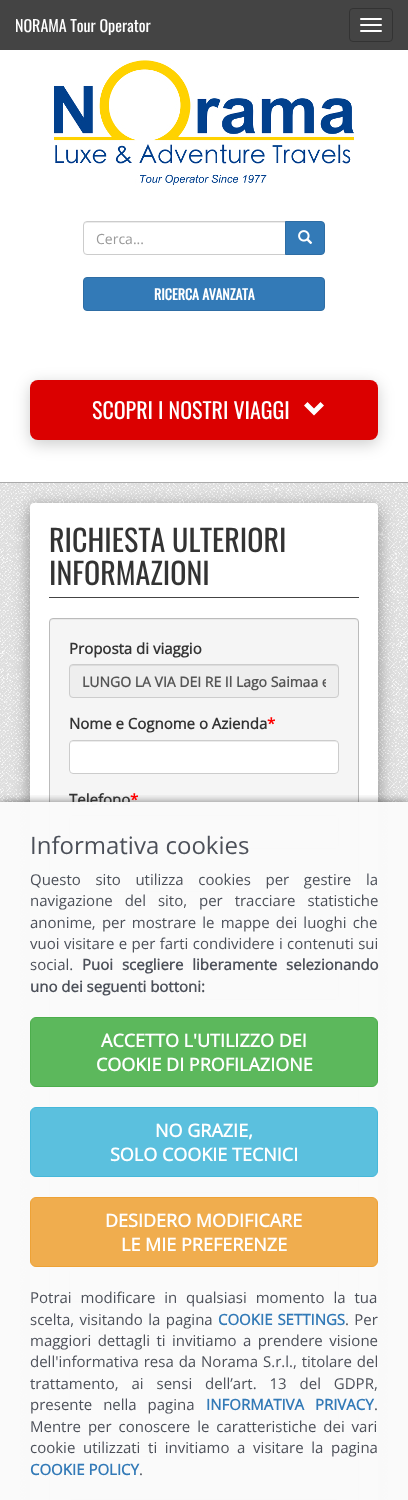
(async () => {
  const canvas = document.querySelector("canvas");
  canvas.width = 408;
  canvas.height = 1500;
  const ctx = canvas.getContext("2d");
  ctx.miterLimit = 4;
  ctx.fontKerning = "normal";
  async function loadImage(src) {
    const img = new Image();
    img.src = src;
    await img.decode();
    return img;
  }
  let path;

  ctx.fillStyle = "#ffffff";
  ctx.fillRect(0, 0, 408, 1500);
  ctx.fillStyle = "#444444";
  ctx.fillRect(0, 0, 408, 50);
  ctx.beginPath();
  ctx.roundRect(349.5, 8.5, 43, 33, 3.5);
  ctx.strokeStyle = "#333333";
  ctx.stroke();
  ctx.fillStyle = "#ffffff";
  ctx.beginPath();
  ctx.roundRect(360, 18, 22, 2, 1);
  ctx.fill();
  ctx.beginPath();
  ctx.roundRect(360, 24, 22, 2, 1);
  ctx.fill();
  ctx.beginPath();
  ctx.roundRect(360, 30, 22, 2, 1);
  ctx.fill();
  ctx.fillStyle = "#aaaaaa";
  ctx.fillRect(0, 482, 408, 1);
  ctx.drawImage(await loadImage("img/1.png"), 54, 60, 300, 125);
  ctx.fillStyle = "#ececec";
  path = new Path2D("M87 223H285V222H87C85 222 84 224 84 226C84 224 85 223 87 223Z");
  ctx.fill(path);
  ctx.beginPath();
  ctx.roundRect(83.5, 221.5, 202, 33, [3.5, 0, 0, 3.5]);
  ctx.strokeStyle = "#cccccc";
  ctx.stroke();
  ctx.fillStyle = "#337ab7";
  ctx.beginPath();
  ctx.roundRect(285.5, 221.5, 39, 33, [0, 3.5, 3.5, 0]);
  ctx.fill();
  ctx.strokeStyle = "#2e6da4";
  ctx.stroke();
  ctx.drawImage(await loadImage("img/2.png"), 298, 230, 15, 14);
  ctx.beginPath();
  ctx.roundRect(83.5, 277.5, 241, 33, 3.5);
  ctx.fill();
  ctx.stroke();
  ctx.fillStyle = "rgba(0, 0, 0, 0.2)";
  ctx.filter = "blur(8px)";
  ctx.beginPath();
  ctx.roundRect(30, 384, 348, 60, 8);
  ctx.fill();
  ctx.filter = "none";
  ctx.fillStyle = "#db0000";
  ctx.beginPath();
  ctx.roundRect(30, 380, 348, 60, 8);
  ctx.fill();
  ctx.fillStyle = "#ffffff";
  path = new Path2D("M324 405.5L314 415.5L304 405.5L307.5 402L314 408.5L320.5 402Z");
  ctx.fill(path);
  ctx.drawImage(await loadImage("img/3.png"), 0, 483, 408, 1017);
  ctx.fillStyle = "rgba(0, 0, 0, 0.4)";
  ctx.filter = "blur(8px)";
  ctx.beginPath();
  ctx.roundRect(30, 507, 348, 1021, 4);
  ctx.fill();
  ctx.filter = "none";
  ctx.fillStyle = "#ffffff";
  ctx.beginPath();
  ctx.roundRect(30, 503, 348, 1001, 4);
  ctx.fill();
  ctx.fillStyle = "#444444";
  ctx.fillRect(49, 597, 310, 1);
  ctx.fillStyle = "#f5f5f5";
  ctx.beginPath();
  ctx.roundRect(49, 618, 310, 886, 4);
  ctx.fill();
  ctx.fillStyle = "#e9e9e9";
  path = new Path2D("M53 620H355C357 620 358 621 358 623L357 620L356 619H53C51 619 50 621 50 623C50 621 51 620 53 620Z");
  ctx.fill(path);
  ctx.beginPath();
  ctx.roundRect(49.5, 618.5, 309, 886, 3.5);
  ctx.strokeStyle = "#bbbbbb";
  ctx.stroke();
  ctx.fillStyle = "#eeeeee";
  ctx.beginPath();
  ctx.roundRect(69, 664, 270, 34, 4);
  ctx.fill();
  ctx.fillStyle = "#dcdcdc";
  path = new Path2D("M73 666H335C337 666 338 667 338 669C338 667 337 665 335 665H73C71 665 70 667 70 669C70 667 71 666 73 666Z");
  ctx.fill(path);
  ctx.beginPath();
  ctx.roundRect(69.5, 664.5, 269, 33, 3.5);
  ctx.strokeStyle = "#cccccc";
  ctx.stroke();
  ctx.fillStyle = "#ffffff";
  ctx.beginPath();
  ctx.roundRect(69, 740, 270, 34, 4);
  ctx.fill();
  ctx.fillStyle = "#ececec";
  path = new Path2D("M73 742H335C337 742 338 743 338 745C338 743 337 741 335 741H73C71 741 70 743 70 745C70 743 71 742 73 742Z");
  ctx.fill(path);
  ctx.beginPath();
  ctx.roundRect(69.5, 740.5, 269, 33, 3.5);
  ctx.stroke();
  ctx.fillStyle = "#ffffff";
  ctx.beginPath();
  ctx.roundRect(69, 815, 270, 34, 4);
  ctx.fill();
  ctx.fillStyle = "#ececec";
  path = new Path2D("M73 817H335C337 817 338 818 338 820C338 818 337 816 335 816H73C71 816 70 818 70 820C70 818 71 817 73 817Z");
  ctx.fill(path);
  ctx.beginPath();
  ctx.roundRect(69.5, 815.5, 269, 33, 3.5);
  ctx.stroke();
  ctx.fillStyle = "#ffffff";
  ctx.beginPath();
  ctx.roundRect(69, 891, 270, 34, 4);
  ctx.fill();
  ctx.fillStyle = "#ececec";
  path = new Path2D("M73 893H335C337 893 338 894 338 896C338 894 337 892 335 892H73C71 892 70 894 70 896C70 894 71 893 73 893Z");
  ctx.fill(path);
  ctx.beginPath();
  ctx.roundRect(69.5, 891.5, 269, 33, 3.5);
  ctx.stroke();
  ctx.fillStyle = "#ffffff";
  ctx.beginPath();
  ctx.roundRect(69, 966, 270, 34, 4);
  ctx.fill();
  ctx.fillStyle = "#ececec";
  path = new Path2D("M73 968H335C337 968 338 969 338 971C338 969 337 967 335 967H73C71 967 70 969 70 971C70 969 71 968 73 968Z");
  ctx.fill(path);
  ctx.beginPath();
  ctx.roundRect(69.5, 966.5, 269, 33, 3.5);
  ctx.stroke();
  ctx.fillStyle = "#ffffff";
  ctx.beginPath();
  ctx.roundRect(69, 1192, 270, 34, 4);
  ctx.fill();
  ctx.fillStyle = "#ececec";
  path = new Path2D("M73 1194H335C337 1194 338 1195 338 1197C338 1195 337 1193 335 1193H73C71 1193 70 1195 70 1197C70 1195 71 1194 73 1194Z");
  ctx.fill(path);
  ctx.beginPath();
  ctx.roundRect(69.5, 1192.5, 269, 33, 3.5);
  ctx.stroke();
  ctx.fillStyle = "#ffffff";
  ctx.beginPath();
  ctx.roundRect(69, 1268, 270, 34, 4);
  ctx.fill();
  ctx.fillStyle = "#ececec";
  path = new Path2D("M73 1270H335C337 1270 338 1271 338 1273C338 1271 337 1269 335 1269H73C71 1269 70 1271 70 1273C70 1271 71 1270 73 1270Z");
  ctx.fill(path);
  ctx.beginPath();
  ctx.roundRect(69.5, 1268.5, 269, 33, 3.5);
  ctx.stroke();
  ctx.fillStyle = "#ffffff";
  ctx.beginPath();
  ctx.roundRect(69, 1343, 270, 114, 4);
  ctx.fill();
  ctx.fillStyle = "#ececec";
  path = new Path2D("M73 1345H335C337 1345 338 1346 338 1348C338 1346 337 1344 335 1344H73C71 1344 70 1346 70 1348C70 1346 71 1345 73 1345Z");
  ctx.fill(path);
  ctx.beginPath();
  ctx.roundRect(69.5, 1343.5, 269, 113, 3.5);
  ctx.stroke();
  ctx.beginPath();
  ctx.roundRect(69.5, 1499.5, 269, 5, 3.5);
  ctx.stroke();
  ctx.save();
  ctx.beginPath();
  ctx.rect(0, 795, 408, 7);
  ctx.clip();
  ctx.fillStyle = "rgba(0, 0, 0, 0.5)";
  ctx.filter = "blur(4px)";
  ctx.beginPath();
  ctx.rect(0, 802, 408, 698);
  ctx.fill();
  ctx.filter = "none";
  ctx.restore();
  ctx.font = "16px Oswald";
  ctx.fillStyle = "#ffffff";
  ctx.fillText("NORAMA Tour Operator", 15, 32);
  ctx.font = "14px Open Sans";
  ctx.fillStyle = "#999999";
  ctx.fillText("Cerca...", 96, 244);
  ctx.font = "bold 14px Oswald";
  ctx.fillStyle = "#ffffff";
  ctx.fillText("RICERCA AVANZATA", 154, 300);
  ctx.font = "22px Oswald";
  ctx.fillText("SCOPRI I NOSTRI VIAGGI", 92, 419);
  ctx.font = "30px Oswald";
  ctx.fillStyle = "#333333";
  ctx.fillText("RICHIESTA ULTERIORI", 49, 552);
  ctx.fillText("INFORMAZIONI", 49, 585);
  ctx.font = "bold 15px Open Sans";
  ctx.fillText("Proposta di viaggio", 69, 654);
  ctx.save();
  ctx.beginPath();
  ctx.rect(82, 672, 244, 19);
  ctx.clip();
  ctx.font = "bold 14px Open Sans";
  ctx.fillStyle = "#555555";
  ctx.fillText("LUNGO LA VIA DEI RE Il Lago Saimaa e", 82, 687);
  ctx.restore();
  ctx.fillText("Nome e Cognome o Azienda", 69, 729);
  ctx.fillStyle = "#ff0000";
  ctx.fillText("*", 267, 729);
  ctx.fillStyle = "#333333";
  ctx.fillText("Telefono", 69, 805);
  ctx.fillStyle = "#ff0000";
  ctx.fillText("*", 130, 805);
  ctx.fillStyle = "rgba(250, 250, 250, 0.98)";
  ctx.fillRect(0, 802, 408, 698);
  ctx.font = "24px Open Sans";
  ctx.fillStyle = "#4c5059";
  ctx.fillText("Informativa cookies", 30, 854);
  ctx.wordSpacing = "10.75px";
  ctx.font = "15px Open Sans";
  ctx.fillText("Questo sito utilizza cookies per gestire la", 30, 885);
  ctx.wordSpacing = "8px";
  ctx.fillText("navigazione del sito, per tracciare statistiche", 30, 906);
  ctx.wordSpacing = "2.25px";
  ctx.fillText("anonime, per mostrare le mappe dei luoghi che", 30, 928);
  ctx.wordSpacing = "0.5px";
  ctx.fillText("vuoi visitare e per farti condividere i contenuti sui", 30, 949);
  ctx.wordSpacing = "0px";
  ctx.fillText("social.", 30, 970);
  ctx.wordSpacing = "5px";
  ctx.font = "bold 15px Open Sans";
  ctx.fillText("Puoi scegliere liberamente selezionando", 82, 970);
  ctx.wordSpacing = "0px";
  ctx.fillText("uno dei seguenti bottoni:", 30, 992);
  ctx.fillStyle = "#5cb85c";
  ctx.beginPath();
  ctx.roundRect(30.5, 1017.5, 347, 69, 5.5);
  ctx.fill();
  ctx.strokeStyle = "#4cae4c";
  ctx.stroke();
  ctx.font = "bold 18px Open Sans";
  ctx.fillStyle = "#ffffff";
  ctx.fillText("ACCETTO L'UTILIZZO DEI", 101, 1047);
  ctx.fillText("COOKIE DI PROFILAZIONE", 96, 1071);
  ctx.fillStyle = "#5bc0de";
  ctx.beginPath();
  ctx.roundRect(30.5, 1107.5, 347, 69, 5.5);
  ctx.fill();
  ctx.strokeStyle = "#46b8da";
  ctx.stroke();
  ctx.fillStyle = "#ffffff";
  ctx.fillText("NO GRAZIE,", 155, 1137);
  ctx.fillText("SOLO COOKIE TECNICI", 110, 1161);
  ctx.fillStyle = "#f0ad4e";
  ctx.beginPath();
  ctx.roundRect(30.5, 1197.5, 347, 69, 5.5);
  ctx.fill();
  ctx.strokeStyle = "#eea236";
  ctx.stroke();
  ctx.fillStyle = "#ffffff";
  ctx.fillText("DESIDERO MODIFICARE", 105, 1227);
  ctx.fillText("LE MIE PREFERENZE", 121, 1251);
  ctx.wordSpacing = "5px";
  ctx.font = "15px Open Sans";
  ctx.fillStyle = "#4c5059";
  ctx.fillText("Potrai modificare in qualsiasi momento la tua", 30, 1303);
  ctx.wordSpacing = "1.5px";
  ctx.fillText("scelta, visitando la pagina", 30, 1325);
  ctx.wordSpacing = "1px";
  ctx.font = "bold 15px Open Sans";
  ctx.fillStyle = "#337ab7";
  ctx.fillText("COOKIE SETTINGS", 218, 1325);
  ctx.wordSpacing = "1.5px";
  ctx.font = "15px Open Sans";
  ctx.fillStyle = "#4c5059";
  ctx.fillText(". Per", 345, 1325);
  ctx.wordSpacing = "2.5px";
  ctx.fillText("maggiori dettagli ti invitiamo a prendere visione", 30, 1346);
  ctx.wordSpacing = "1px";
  ctx.fillText("dell'informativa resa da Norama S.r.l., titolare del", 30, 1367);
  ctx.wordSpacing = "9px";
  ctx.fillText("trattamento, ai sensi dell’art. 13 del GDPR,", 30, 1389);
  ctx.wordSpacing = "7px";
  ctx.fillText("presente nella pagina", 30, 1410);
  ctx.font = "bold 15px Open Sans";
  ctx.fillStyle = "#337ab7";
  ctx.fillText("INFORMATIVA PRIVACY", 206, 1410);
  ctx.wordSpacing = "0px";
  ctx.font = "15px Open Sans";
  ctx.fillStyle = "#4c5059";
  ctx.fillText(".", 374, 1410);
  ctx.wordSpacing = "3px";
  ctx.fillText("Mentre per conoscere le caratteristiche dei vari", 30, 1432);
  ctx.wordSpacing = "3.75px";
  ctx.fillText("cookie utilizzati ti invitiamo a visitare la pagina", 30, 1453);
  ctx.wordSpacing = "0px";
  ctx.font = "bold 15px Open Sans";
  ctx.fillStyle = "#337ab7";
  ctx.fillText("COOKIE POLICY", 30, 1475);
  ctx.font = "15px Open Sans";
  ctx.fillStyle = "#4c5059";
  ctx.fillText(".", 139, 1475);
})();
